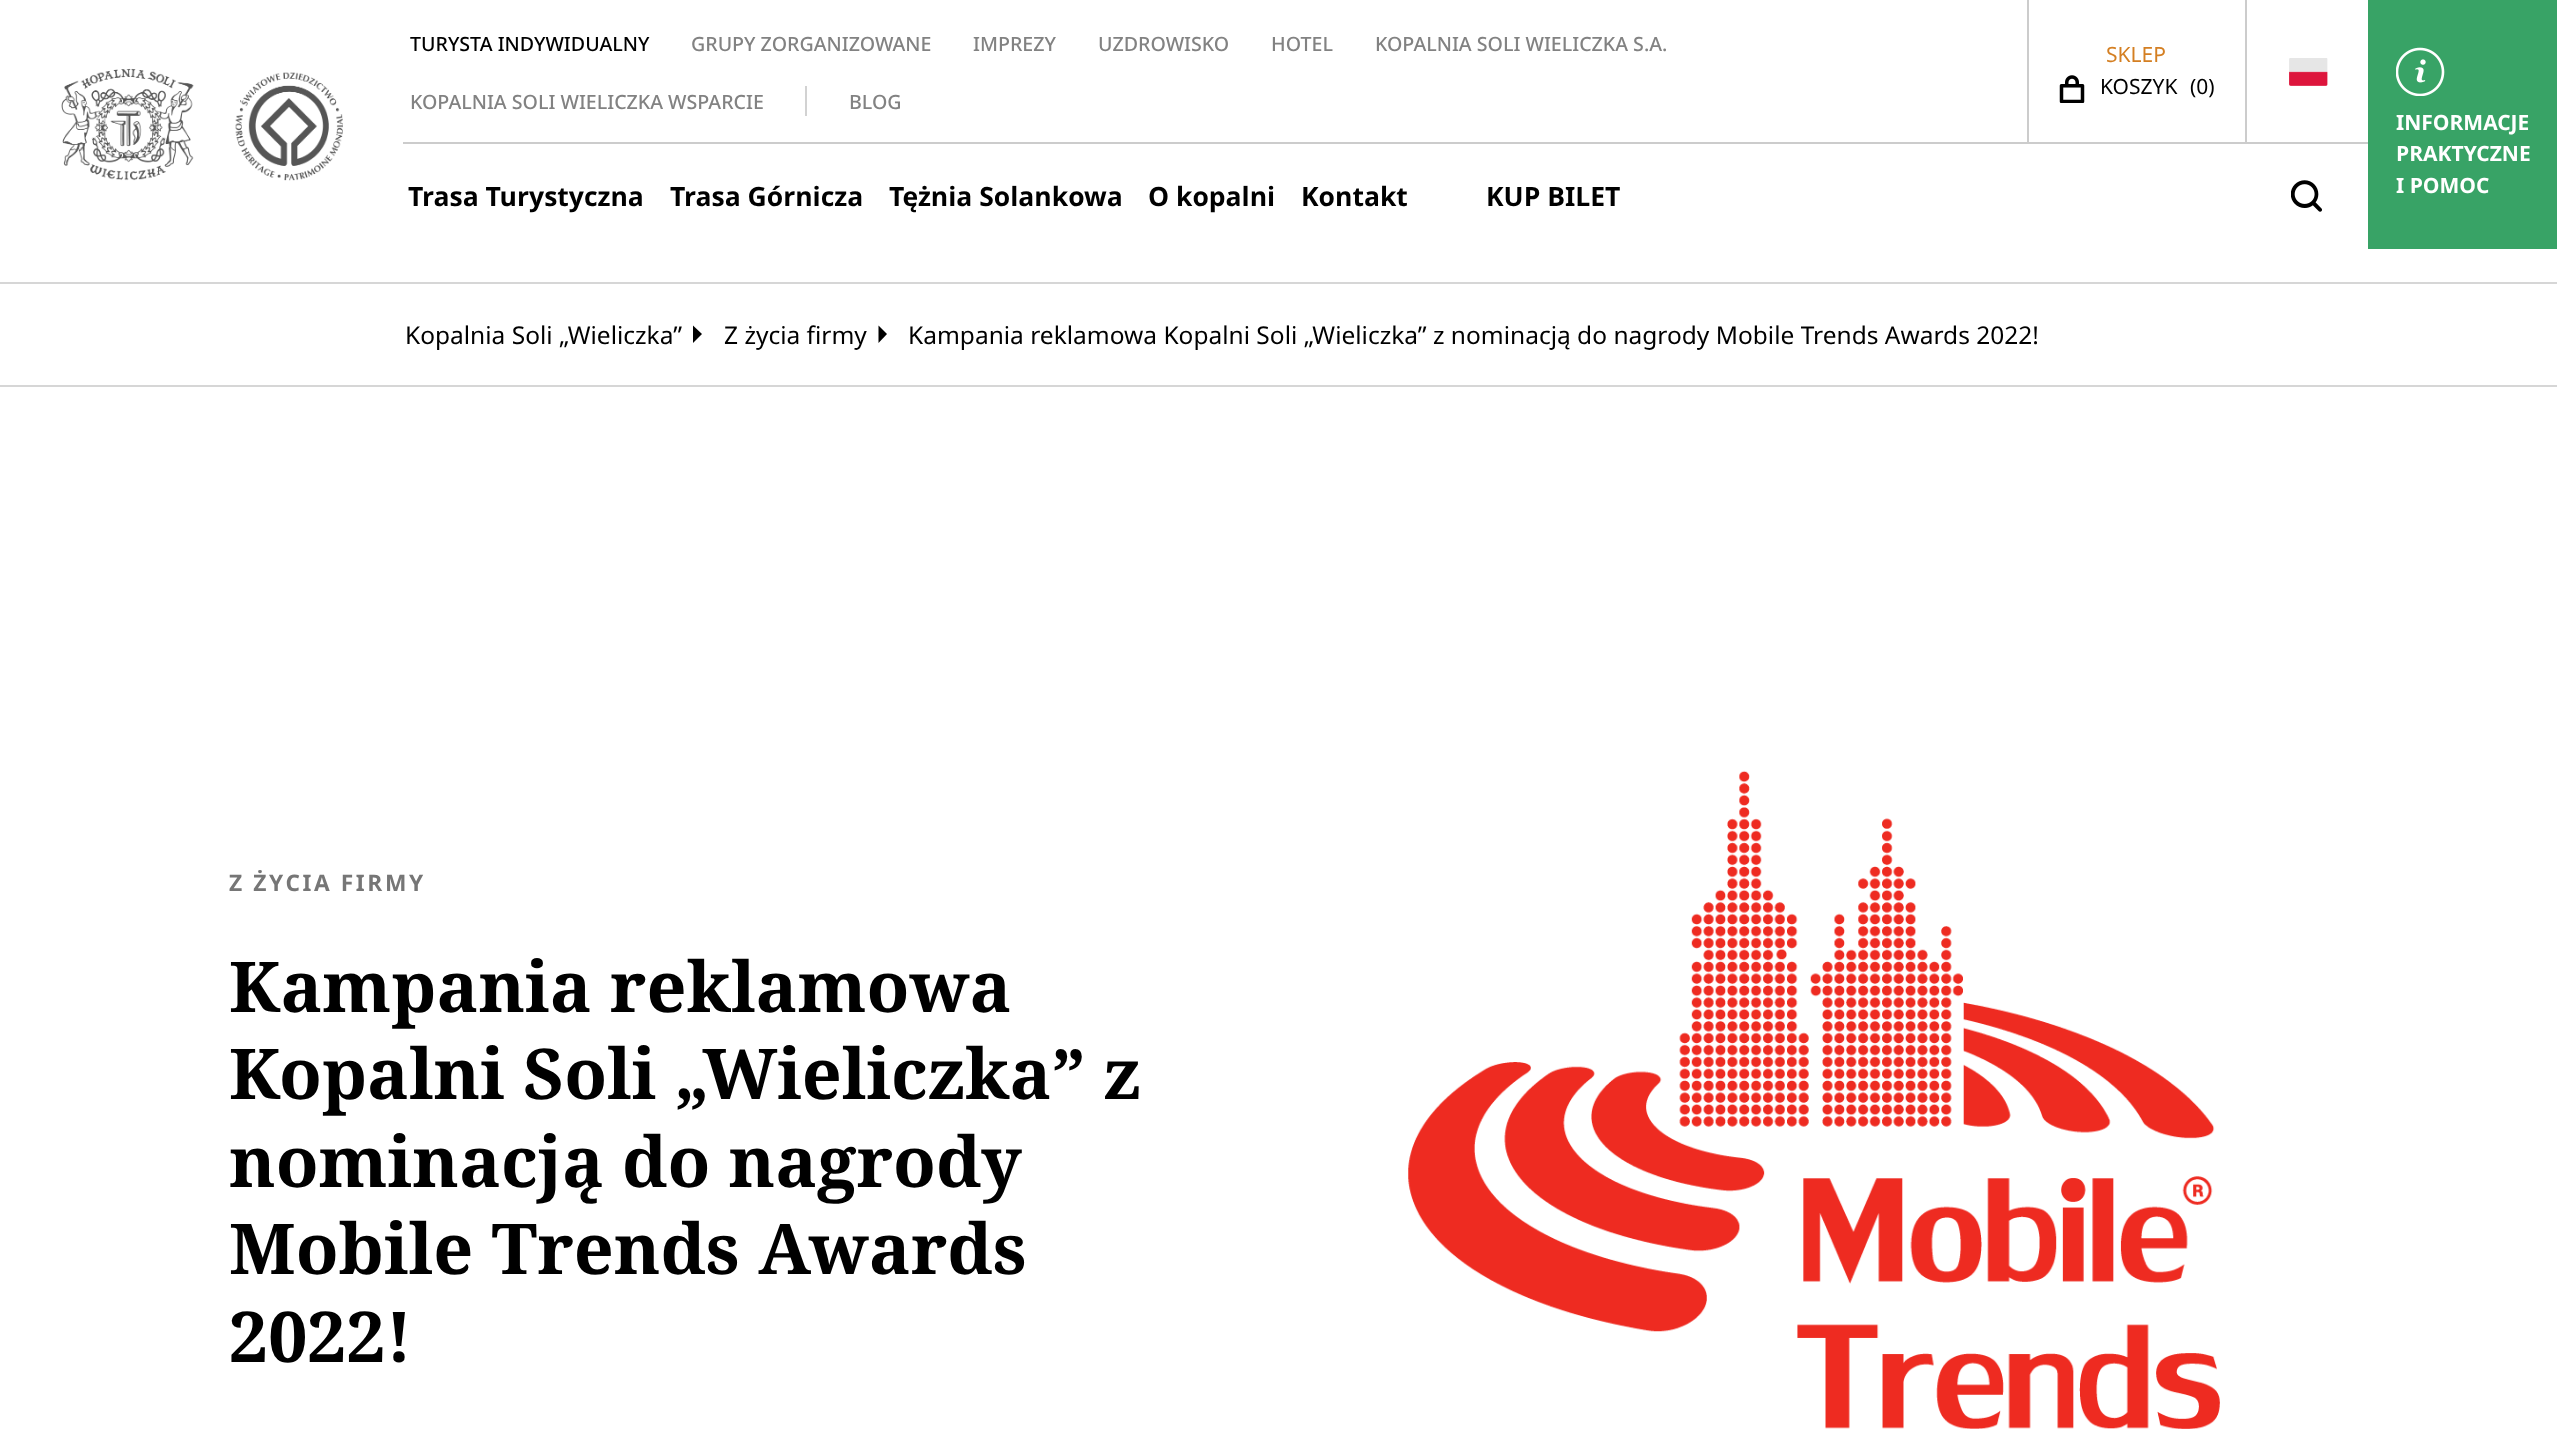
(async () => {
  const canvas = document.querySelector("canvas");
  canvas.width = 2557;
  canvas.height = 1429;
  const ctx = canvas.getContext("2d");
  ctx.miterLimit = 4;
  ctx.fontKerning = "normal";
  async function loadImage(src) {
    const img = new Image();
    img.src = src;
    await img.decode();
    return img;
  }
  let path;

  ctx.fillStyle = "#ffffff";
  ctx.fillRect(0, 0, 2557, 1429);
  ctx.drawImage(await loadImage("img/1.png"), 61, 68, 282, 113);
  for (const [x, y, w, h, color] of [
    [403, 142, 1965, 2, "#cccccc"],
    [805, 86, 2, 30, "#d2d2d2"],
    [2027, 0, 2, 142, "#cccccc"],
  ]) {
    ctx.fillStyle = color;
    ctx.fillRect(x, y, w, h);
  }
  ctx.drawImage(await loadImage("img/2.png"), 2059, 75, 26, 28);
  ctx.fillRect(2245, 0, 2, 142);
  ctx.drawImage(await loadImage("img/3.png"), 2289, 58, 39, 28);
  ctx.drawImage(await loadImage("img/4.png"), 2291, 180, 31, 32);
  ctx.fillStyle = "#38a366";
  ctx.fillRect(2368, 0, 189, 249);
  ctx.drawImage(await loadImage("img/5.png"), 2396, 47, 49, 49);
  ctx.fillStyle = "#d6d6d6";
  ctx.fillRect(0, 282, 2557, 2);
  ctx.fillRect(0, 385, 2557, 2);
  ctx.fillStyle = "#000000";
  path = new Path2D("M693 343V325.5L702 334Z");
  ctx.fill(path);
  path = new Path2D("M878.5 343V325.5L887 334Z");
  ctx.fill(path);
  ctx.drawImage(await loadImage("img/6.png"), 1408, 770, 812, 659);
  ctx.font = "500 19.6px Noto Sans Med";
  ctx.fillText("TURYSTA INDYWIDUALNY", 410, 51);
  ctx.fillStyle = "#828282";
  for (const [text, x, y] of [
    ["GRUPY ZORGANIZOWANE", 691, 51],
    ["IMPREZY", 973, 51],
    ["UZDROWISKO", 1098, 51],
    ["HOTEL", 1271, 51],
    ["KOPALNIA SOLI WIELICZKA S.A.", 1375, 51],
    ["KOPALNIA SOLI WIELICZKA WSPARCIE", 410, 109],
    ["BLOG", 849, 109],
  ]) {
    ctx.fillText(text, x, y);
  }
  ctx.font = "21px Noto Sans";
  ctx.fillStyle = "#d47f22";
  ctx.fillText("SKLEP", 2106, 62);
  ctx.fillStyle = "#000000";
  ctx.fillText("KOSZYK", 2100, 94);
  ctx.fillText("(0)", 2190, 94);
  ctx.font = "bold 26.5px Noto Sans";
  for (const [text, x, y] of [
    ["Trasa Turystyczna", 408, 206],
    ["Trasa Górnicza", 670, 206],
    ["Tężnia Solankowa", 889, 206],
    ["O kopalni", 1148, 206],
    ["Kontakt", 1301, 206],
    ["KUP BILET", 1486, 206],
  ]) {
    ctx.fillText(text, x, y);
  }
  ctx.font = "bold 21px Noto Sans";
  ctx.fillStyle = "#ffffff";
  for (const [text, x, y] of [
    ["INFORMACJE", 2396, 130],
    ["PRAKTYCZNE", 2396, 161],
    ["I POMOC", 2396, 193],
  ]) {
    ctx.fillText(text, x, y);
  }
  ctx.font = "24.5px Noto Sans";
  ctx.fillStyle = "#000000";
  for (const [text, x, y] of [
    ["Kopalnia Soli „Wieliczka”", 405, 344],
    ["Z życia firmy", 724, 344],
    ["Kampania reklamowa Kopalni Soli „Wieliczka” z nominacją do nagrody Mobile Trends Awards 2022!", 908, 344],
  ]) {
    ctx.fillText(text, x, y);
  }
  ctx.letterSpacing = "2.6px";
  ctx.font = "bold 22.75px Noto Sans";
  ctx.fillStyle = "#767676";
  ctx.fillText("Z ŻYCIA FIRMY", 229, 891);
  ctx.letterSpacing = "0px";
  ctx.font = "bold 70px Noto Serif";
  ctx.fillStyle = "#000000";
  for (const [text, x, y] of [
    ["Kampania reklamowa", 229, 1012],
    ["Kopalni Soli „Wieliczka” z", 229, 1099],
    ["nominacją do nagrody", 229, 1187],
    ["Mobile Trends Awards", 229, 1274],
    ["2022!", 229, 1362],
  ]) {
    ctx.fillText(text, x, y);
  }
})();
